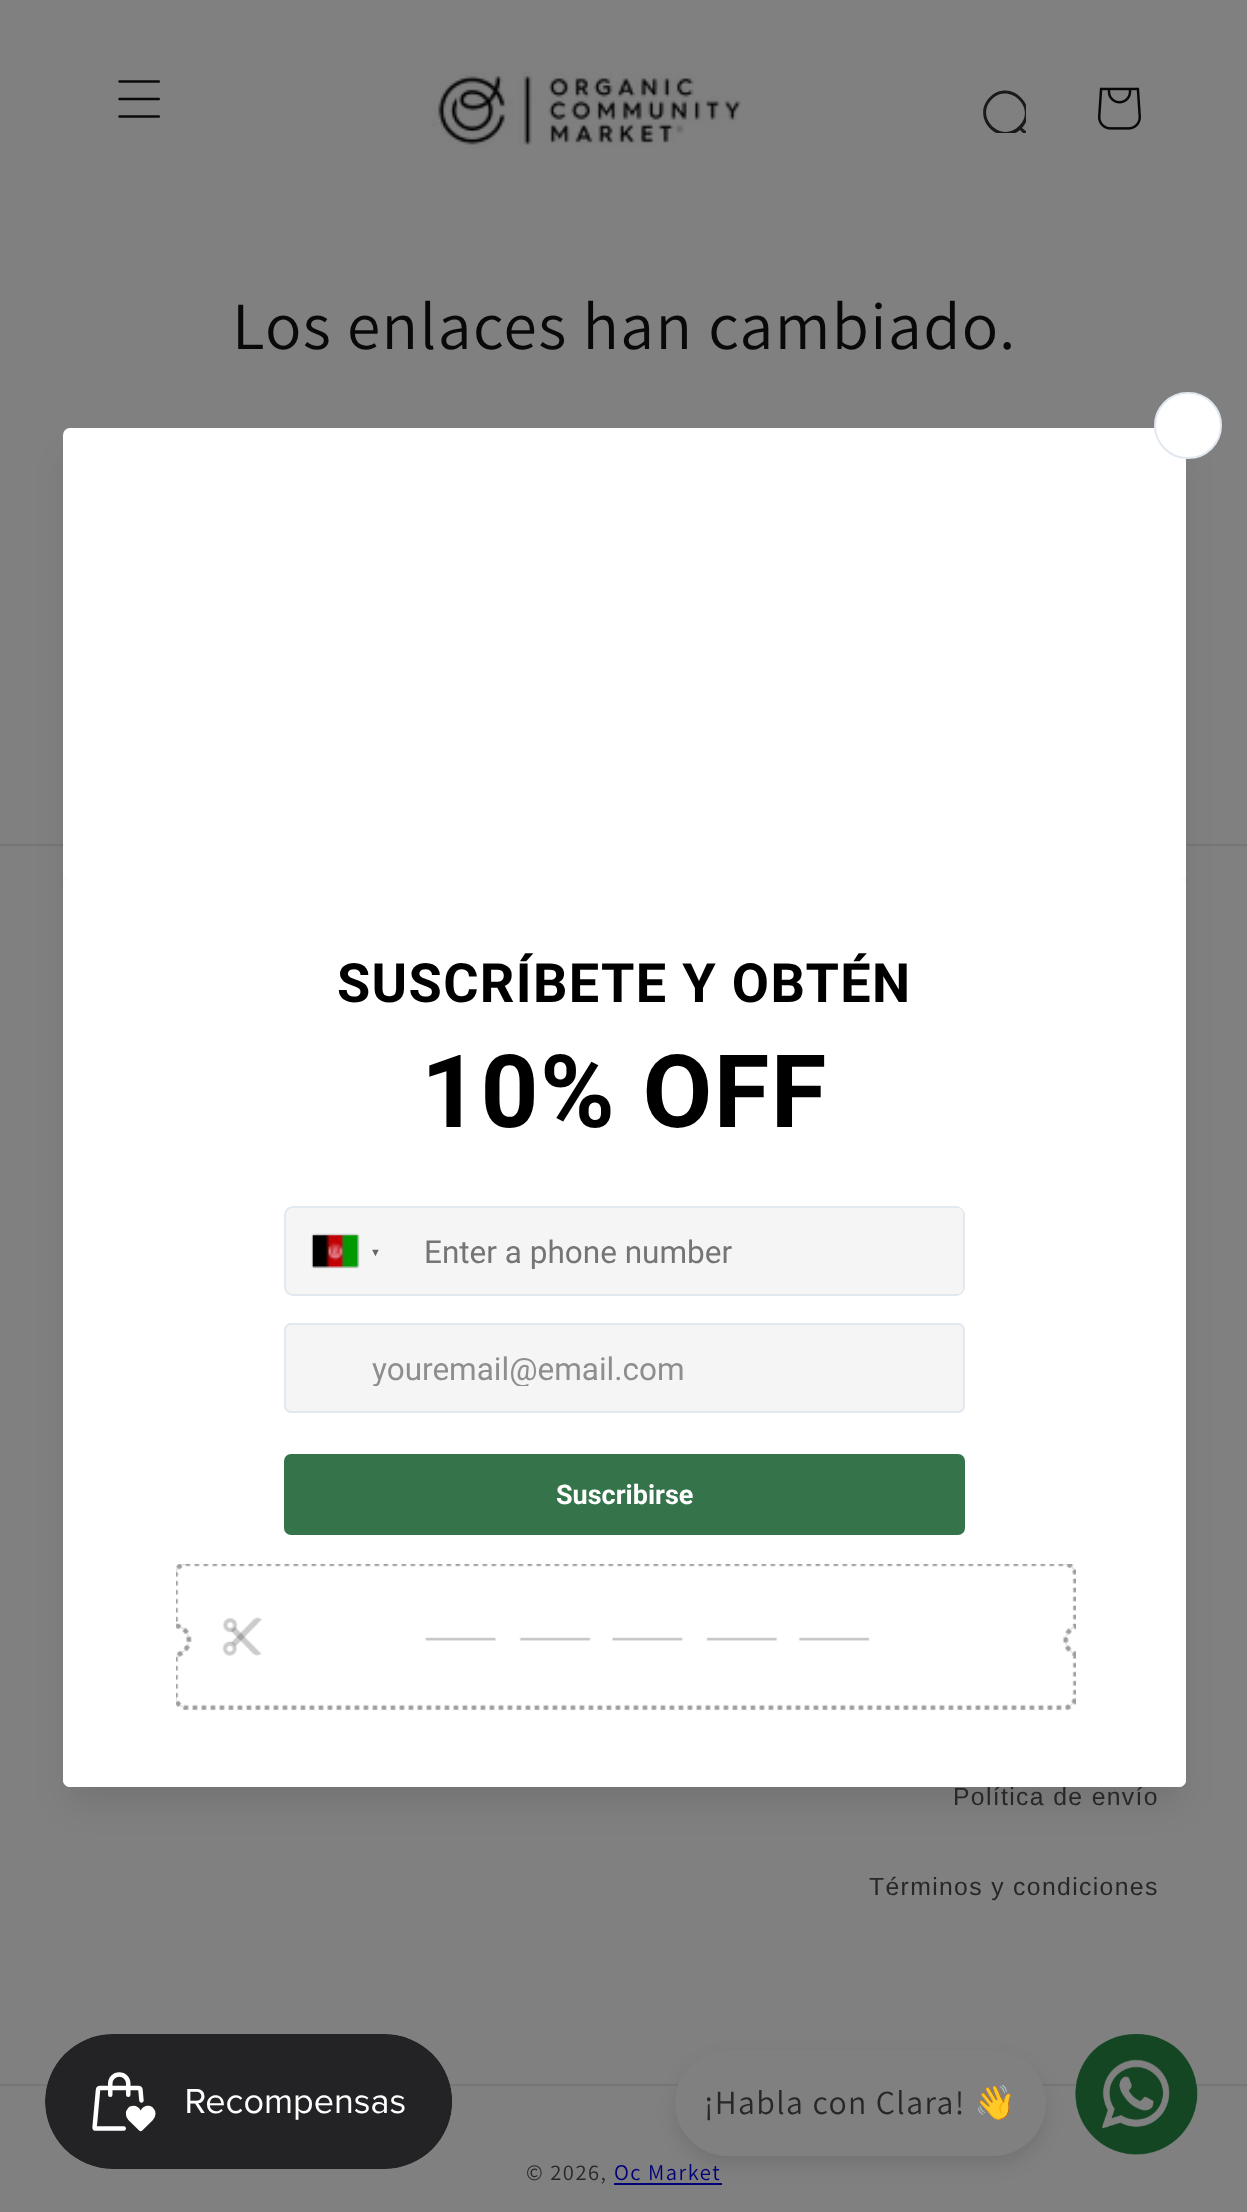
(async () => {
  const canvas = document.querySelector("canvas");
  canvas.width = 1247;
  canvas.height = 2212;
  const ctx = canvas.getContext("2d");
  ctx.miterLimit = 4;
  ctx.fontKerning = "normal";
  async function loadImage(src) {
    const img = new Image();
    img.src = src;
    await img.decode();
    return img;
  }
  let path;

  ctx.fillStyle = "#808080";
  ctx.fillRect(0, 0, 1247, 2212);
  ctx.drawImage(await loadImage("img/1.png"), 118, 80, 42, 38);
  ctx.drawImage(await loadImage("img/2.png"), 432, 72, 309, 76);
  ctx.save();
  ctx.beginPath();
  ctx.rect(981, 88, 45, 45);
  ctx.clip();
  ctx.fillStyle = "#1a1a1a";
  path = new Path2D("M1019 126C1001 144 974 117 992 99C1010 82 1037 109 1019 126ZM1020 130C998 148 970 117 990 97C1010 77 1041 107 1022 128C1025 130 1041 145 1041 147L1040 148C1038 150 1033 143 1032 142Z");
  ctx.fill(path, "evenodd");
  ctx.restore();
  ctx.drawImage(await loadImage("img/3.png"), 1098, 87, 43, 43);
  ctx.fillStyle = "#767676";
  ctx.fillRect(0, 844, 1247, 2);
  ctx.fillStyle = "rgba(0, 0, 0, 0.1)";
  ctx.filter = "blur(17px)";
  ctx.beginPath();
  ctx.rect(70, 457, 1109, 1345);
  ctx.fill();
  ctx.filter = "none";
  ctx.fillStyle = "#767676";
  ctx.fillRect(0, 2084, 1247, 2);
  ctx.drawImage(await loadImage("img/6.png"), 45, 2034, 407, 135);
  ctx.fillStyle = "#000077";
  ctx.fillRect(614, 2183, 108, 2);
  ctx.fillStyle = "rgba(0, 0, 0, 0.1)";
  ctx.filter = "blur(9px)";
  ctx.beginPath();
  ctx.roundRect(675, 2059, 371, 106, 53);
  ctx.fill();
  ctx.filter = "none";
  ctx.fillStyle = "#808080";
  ctx.beginPath();
  ctx.roundRect(675, 2050, 371, 106, 53);
  ctx.fill();
  ctx.drawImage(await loadImage("img/7.png"), 1075, 2034, 123, 121);
  ctx.letterSpacing = "1.35px";
  ctx.font = "67.5px Assistant";
  ctx.fillStyle = "#090909";
  ctx.fillText("Los enlaces han cambiado.", 232, 349);
  ctx.font = "24.75px Liberation Sans";
  ctx.fillStyle = "#272727";
  ctx.fillText("Política de envío", 953, 1805);
  ctx.fillStyle = "#ffffff";
  ctx.beginPath();
  ctx.roundRect(63, 428, 1123, 1359, 7);
  ctx.fill();
  ctx.beginPath();
  ctx.roundRect(1155, 393, 66, 65, 32.5);
  ctx.fill();
  ctx.strokeStyle = "#e2e8f0";
  ctx.lineWidth = 2;
  ctx.stroke();
  ctx.save();
  ctx.beginPath();
  ctx.rect(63, 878, 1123, 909);
  ctx.clip();
  ctx.fillStyle = "rgba(0, 0, 0, 0.12)";
  ctx.filter = "blur(22.5px)";
  ctx.beginPath();
  ctx.rect(70, 884, 1109, 896);
  ctx.fill();
  ctx.filter = "none";
  ctx.restore();
  ctx.beginPath();
  ctx.roundRect(63, 878, 1123, 909, 7);
  ctx.fill();
  ctx.drawImage(await loadImage("img/5.png"), 176, 1564, 900, 147);
  ctx.fillStyle = "#f5f5f5";
  ctx.beginPath();
  ctx.roundRect(285, 1324, 679, 88, 6);
  ctx.fill();
  ctx.stroke();
  ctx.save();
  ctx.beginPath();
  ctx.rect(290, 1350, 669, 36);
  ctx.clip();
  ctx.letterSpacing = "0px";
  ctx.font = "31.5px Roboto";
  ctx.fillStyle = "#8e8e8e";
  ctx.fillText("youremail@email.com", 372, 1380);
  ctx.restore();
  ctx.beginPath();
  ctx.roundRect(285, 1207, 679, 88, 8);
  ctx.fill();
  ctx.stroke();
  ctx.letterSpacing = "12px";
  ctx.font = "11px Liberation Sans";
  ctx.fillStyle = "#666666";
  ctx.fillText("▼", 370, 1256);
  ctx.fillStyle = "#888888";
  ctx.filter = "blur(1px)";
  ctx.beginPath();
  ctx.rect(313, 1235, 45, 32);
  ctx.fill();
  ctx.filter = "none";
  ctx.fillStyle = "#dbdbdb";
  ctx.fillRect(313, 1235, 45, 32);
  ctx.drawImage(await loadImage("img/4.png"), 312, 1235, 47, 33);
  ctx.fillStyle = "#f5f5f5";
  ctx.beginPath();
  ctx.roundRect(410, 1208, 553, 86, [0, 5, 5, 0]);
  ctx.fill();
  ctx.save();
  ctx.beginPath();
  ctx.rect(425, 1233, 534, 36);
  ctx.clip();
  ctx.letterSpacing = "0px";
  ctx.font = "31.5px Roboto";
  ctx.fillStyle = "#757575";
  ctx.fillText("Enter a phone number", 424, 1263);
  ctx.restore();
  ctx.fillStyle = "#35744b";
  ctx.beginPath();
  ctx.roundRect(284, 1454, 681, 81, 7);
  ctx.fill();
  ctx.letterSpacing = "0px";
  ctx.font = "bold 27px Roboto";
  ctx.fillStyle = "#ffffff";
  ctx.fillText("Suscribirse", 556, 1504);
  ctx.letterSpacing = "1.35px";
  ctx.font = "bold 101.25px Roboto";
  ctx.fillStyle = "#000000";
  ctx.fillText("10% OFF", 421, 1127);
  ctx.font = "bold 54px Roboto";
  ctx.fillText("SUSCRÍBETE Y OBTÉN", 337, 1002);
  ctx.font = "24.75px Liberation Sans";
  ctx.fillStyle = "#272727";
  ctx.fillText("Términos y condiciones", 869, 1895);
  ctx.letterSpacing = "1.5px";
  ctx.font = "22.5px Assistant";
  ctx.fillText("© 2026,", 526, 2180);
  ctx.fillStyle = "#000077";
  ctx.fillText("Oc Market", 614, 2180);
  ctx.letterSpacing = "1.35px";
  ctx.font = "33.75px Assistant";
  ctx.fillStyle = "#272727";
  ctx.fillText("¡Habla con Clara!", 704, 2114);
  ctx.font = "33.75px Noto Color Emoji";
  ctx.fillText("👋", 974, 2114);
})();
